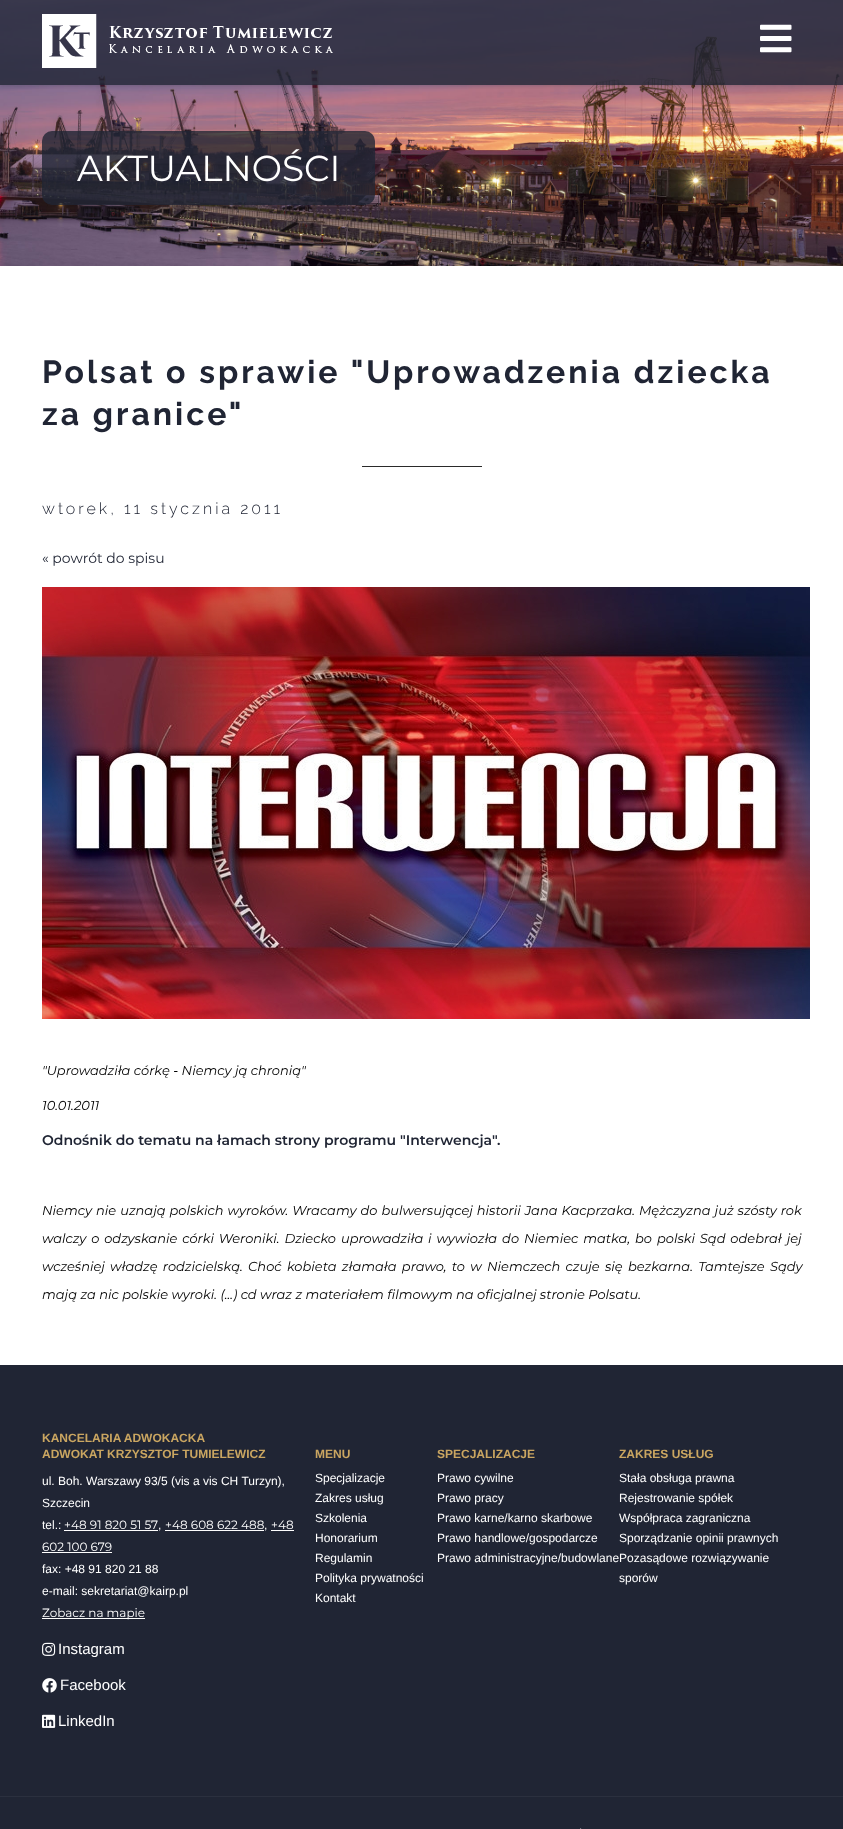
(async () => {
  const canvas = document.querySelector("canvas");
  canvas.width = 843;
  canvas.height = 1829;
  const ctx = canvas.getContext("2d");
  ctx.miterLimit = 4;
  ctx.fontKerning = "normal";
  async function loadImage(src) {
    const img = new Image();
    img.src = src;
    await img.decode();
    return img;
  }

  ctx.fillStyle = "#ffffff";
  ctx.fillRect(0, 0, 843, 1829);
  ctx.drawImage(await loadImage("img/3.png"), 0, 0, 843, 266);
  ctx.save();
  ctx.beginPath();
  ctx.rect(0, 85, 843, 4);
  ctx.clip();
  ctx.fillStyle = "rgba(32, 37, 52, 0.3)";
  ctx.filter = "blur(2.5px)";
  ctx.beginPath();
  ctx.rect(0, 0, 843, 85);
  ctx.fill();
  ctx.filter = "none";
  ctx.restore();
  ctx.fillStyle = "rgba(32, 37, 52, 0.8)";
  ctx.fillRect(0, 0, 843, 85);
  ctx.drawImage(await loadImage("img/1.png"), 42, 14, 291, 54);
  ctx.drawImage(await loadImage("img/2.png"), 760, 24, 32, 29);
  ctx.beginPath();
  ctx.roundRect(42, 131, 333, 74, 10);
  ctx.fill();
  ctx.fillStyle = "#2a2a2a";
  ctx.fillRect(362, 466, 120, 1);
  ctx.drawImage(await loadImage("img/4.png"), 42, 587, 768, 432);
  for (const [x, y, w, h, color] of [
    [0, 1365, 843, 464, "#202534"],
    [0, 1796, 843, 1, "#2b303e"],
    [64, 1530, 94, 1, "#ffffff"],
    [165, 1530, 99, 1, "#ffffff"],
    [271, 1530, 23, 1, "#ffffff"],
    [42, 1552, 70, 1, "#ffffff"],
    [42, 1618, 103, 1, "#ffffff"],
  ]) {
    ctx.fillStyle = color;
    ctx.fillRect(x, y, w, h);
  }
  ctx.drawImage(await loadImage("img/5.png"), 42, 1642, 14, 14);
  ctx.drawImage(await loadImage("img/6.png"), 42, 1678, 15, 15);
  ctx.drawImage(await loadImage("img/7.png"), 42, 1714, 14, 14);
  ctx.drawImage(await loadImage("img/8.png"), 580, 1828, 2, 1);
  ctx.font = "36px Montserrat";
  ctx.fillText("AKTUALNOŚCI", 77, 181);
  ctx.letterSpacing = "3px";
  ctx.font = "bold 32px Raleway";
  ctx.fillStyle = "#202534";
  ctx.fillText("Polsat o sprawie \"Uprowadzenia dziecka", 42, 383);
  ctx.fillText("za granice\"", 42, 425);
  ctx.font = "300 16px Raleway";
  ctx.fillText("wtorek, 11 stycznia 2011", 42, 514);
  ctx.letterSpacing = "0px";
  ctx.font = "14px Montserrat";
  ctx.fillText("« powrót do spisu", 42, 563);
  ctx.font = "italic 13px Montserrat";
  ctx.fillStyle = "#000000";
  ctx.fillText("\"Uprowadziła córkę - Niemcy ją chronią\"", 42, 1075);
  ctx.fillText("10.01.2011", 42, 1110);
  ctx.font = "600 14px Montserrat";
  ctx.fillStyle = "#202534";
  ctx.fillText("Odnośnik do tematu na łamach strony programu \"Interwencja\".", 42, 1145);
  ctx.wordSpacing = "0.6px";
  ctx.font = "italic 13px Montserrat";
  ctx.fillStyle = "#000000";
  ctx.fillText("Niemcy nie uznają polskich wyroków. Wracamy do bulwersującej historii Jana Kacprzaka. Mężczyzna już szósty rok", 42, 1215);
  ctx.wordSpacing = "1.5px";
  ctx.fillText("walczy o odzyskanie córki Weroniki. Dziecko uprowadziła i wywiozła do Niemiec matka, bo polski Sąd odebrał jej", 42, 1243);
  ctx.wordSpacing = "1.9px";
  ctx.fillText("wcześniej władzę rodzicielską. Choć kobieta złamała prawo, to w Niemczech czuje się bezkarna. Tamtejsze Sądy", 42, 1271);
  ctx.wordSpacing = "0px";
  ctx.fillText("mają za nic polskie wyroki. (...) cd wraz z materiałem filmowym na oficjalnej stronie Polsatu.", 42, 1299);
  ctx.font = "bold 12px Liberation Sans";
  ctx.fillStyle = "#caa661";
  ctx.fillText("KANCELARIA ADWOKACKA", 42, 1442);
  ctx.fillText("ADWOKAT KRZYSZTOF TUMIELEWICZ", 42, 1458);
  ctx.font = "12px Liberation Sans";
  ctx.fillStyle = "#ffffff";
  for (const [text, x, y] of [
    ["ul. Boh. Warszawy 93/5 (vis a vis CH Turzyn),", 42, 1485],
    ["Szczecin", 42, 1507],
    ["tel.:", 42, 1529],
  ]) {
    ctx.fillText(text, x, y);
  }
  ctx.font = "12px Montserrat";
  ctx.fillText("+48 91 820 51 57", 64, 1529);
  ctx.font = "12px Liberation Sans";
  ctx.fillText(",", 158, 1529);
  ctx.font = "12px Montserrat";
  ctx.fillText("+48 608 622 488", 165, 1529);
  ctx.font = "12px Liberation Sans";
  ctx.fillText(",", 264, 1529);
  ctx.font = "12px Montserrat";
  ctx.fillText("+48", 271, 1529);
  ctx.fillText("602 100 679", 42, 1551);
  ctx.font = "12px Liberation Sans";
  ctx.fillText("fax: +48 91 820 21 88", 42, 1573);
  ctx.fillText("e-mail: sekretariat@kairp.pl", 42, 1595);
  ctx.font = "12px Montserrat";
  ctx.fillText("Zobacz na mapie", 42, 1617);
  ctx.font = "15px Liberation Sans";
  for (const [text, x, y] of [
    ["Instagram", 58, 1654],
    ["Facebook", 60, 1690],
    ["LinkedIn", 58, 1726],
  ]) {
    ctx.fillText(text, x, y);
  }
  ctx.font = "bold 12px Liberation Sans";
  ctx.fillStyle = "#caa661";
  ctx.fillText("MENU", 315, 1458);
  ctx.font = "12px Liberation Sans";
  ctx.fillStyle = "#ffffff";
  for (const [text, x, y] of [
    ["Specjalizacje", 315, 1482],
    ["Zakres usług", 315, 1502],
    ["Szkolenia", 315, 1522],
    ["Honorarium", 315, 1542],
    ["Regulamin", 315, 1562],
    ["Polityka prywatności", 315, 1582],
    ["Kontakt", 315, 1602],
  ]) {
    ctx.fillText(text, x, y);
  }
  ctx.font = "bold 12px Liberation Sans";
  ctx.fillStyle = "#caa661";
  ctx.fillText("SPECJALIZACJE", 437, 1458);
  ctx.font = "12px Liberation Sans";
  ctx.fillStyle = "#ffffff";
  for (const [text, x, y] of [
    ["Prawo cywilne", 437, 1482],
    ["Prawo pracy", 437, 1502],
    ["Prawo karne/karno skarbowe", 437, 1522],
    ["Prawo handlowe/gospodarcze", 437, 1542],
    ["Prawo administracyjne/budowlanePozasądowe rozwiązywanie", 437, 1562],
  ]) {
    ctx.fillText(text, x, y);
  }
  ctx.font = "bold 12px Liberation Sans";
  ctx.fillStyle = "#caa661";
  ctx.fillText("ZAKRES USŁUG", 619, 1458);
  ctx.font = "12px Liberation Sans";
  ctx.fillStyle = "#ffffff";
  for (const [text, x, y] of [
    ["Stała obsługa prawna", 619, 1482],
    ["Rejestrowanie spółek", 619, 1502],
    ["Współpraca zagraniczna", 619, 1522],
    ["Sporządzanie opinii prawnych", 619, 1542],
    ["sporów", 619, 1582],
  ]) {
    ctx.fillText(text, x, y);
  }
})();
